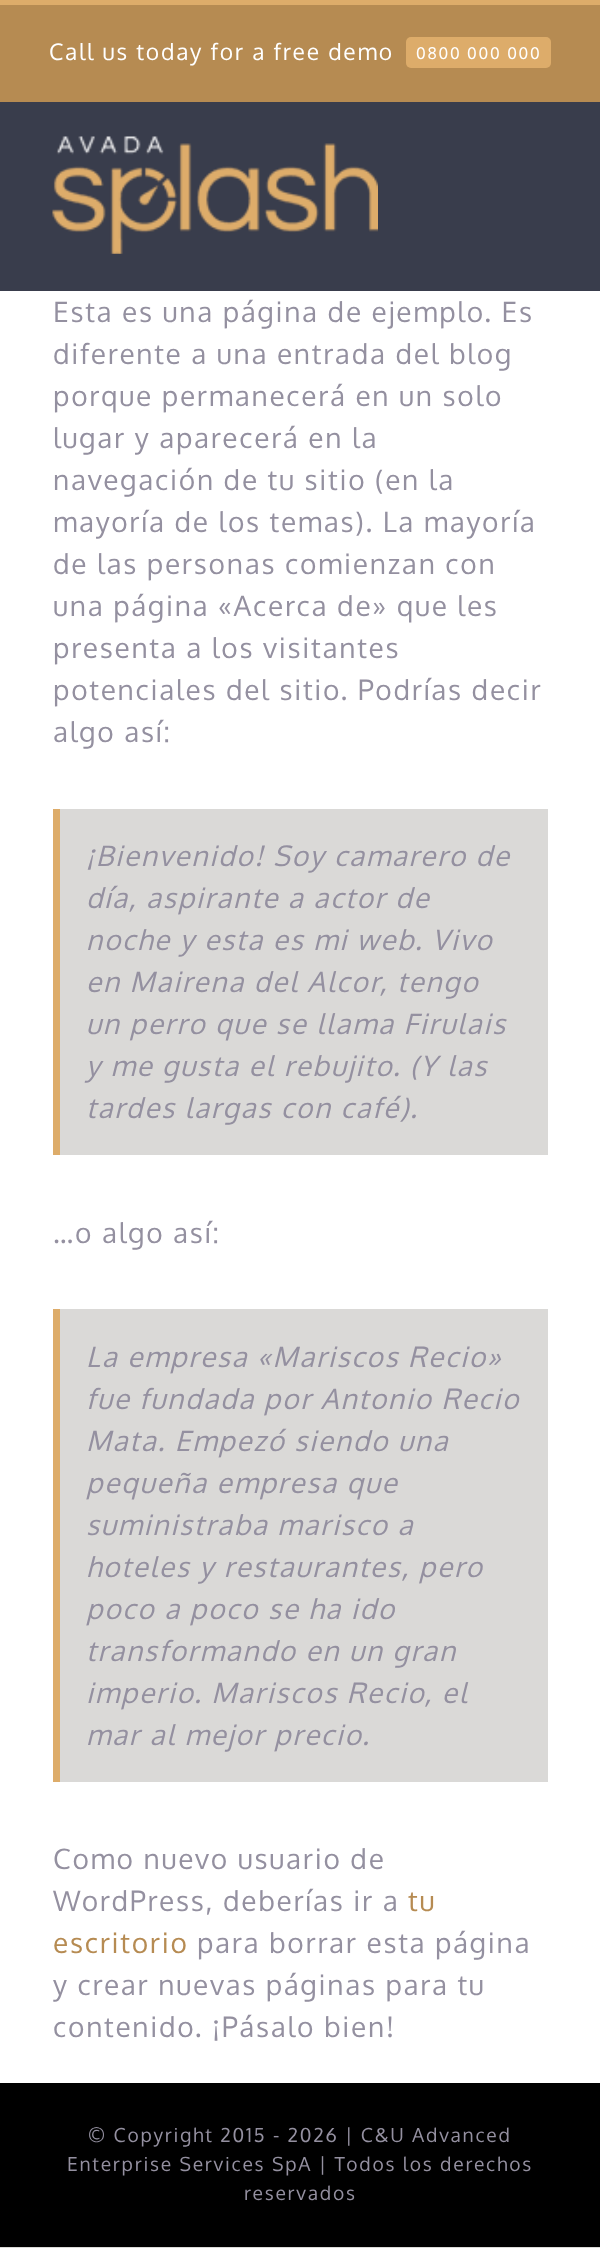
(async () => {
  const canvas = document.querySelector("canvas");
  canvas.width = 600;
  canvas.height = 2248;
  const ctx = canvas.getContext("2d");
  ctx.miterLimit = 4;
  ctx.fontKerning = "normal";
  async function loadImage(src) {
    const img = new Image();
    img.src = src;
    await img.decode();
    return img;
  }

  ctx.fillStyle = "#dad9d7";
  ctx.fillRect(0, 0, 600, 2248);
  for (const [x, y, w, h, color] of [
    [0, 291, 600, 1792, "#ffffff"],
    [0, 5, 600, 97, "#b68b52"],
    [0, 0, 600, 5, "#ddac6a"],
  ]) {
    ctx.fillStyle = color;
    ctx.fillRect(x, y, w, h);
  }
  ctx.beginPath();
  ctx.roundRect(406, 37, 145, 31, 5);
  ctx.fill();
  ctx.fillStyle = "#393d4c";
  ctx.fillRect(0, 102, 600, 189);
  ctx.drawImage(await loadImage("img/1.png"), 52, 136, 326, 118);
  for (const [x, y, w, h, color] of [
    [60, 809, 488, 346, "#dad9d7"],
    [53, 809, 7, 346, "#ddac6a"],
    [60, 1309, 488, 473, "#dad9d7"],
    [53, 1309, 7, 473, "#ddac6a"],
    [0, 2083, 600, 164, "#000000"],
  ]) {
    ctx.fillStyle = color;
    ctx.fillRect(x, y, w, h);
  }
  ctx.letterSpacing = "1.75px";
  ctx.font = "22.75px Oxygen";
  ctx.fillStyle = "#ffffff";
  ctx.fillText("Call us today for a free demo", 49, 60);
  ctx.font = "16px Oxygen";
  ctx.fillText("0800 000 000", 416, 59);
  ctx.font = "28px Oxygen";
  ctx.fillStyle = "#9490a0";
  for (const [text, x, y] of [
    ["Esta es una página de ejemplo. Es", 53, 322],
    ["diferente a una entrada del blog", 53, 364],
    ["porque permanecerá en un solo", 53, 406],
    ["lugar y aparecerá en la", 53, 448],
    ["navegación de tu sitio (en la", 53, 490],
    ["mayoría de los temas). La mayoría", 53, 532],
    ["de las personas comienzan con", 53, 574],
    ["una página «Acerca de» que les", 53, 616],
    ["presenta a los visitantes", 53, 658],
    ["potenciales del sitio. Podrías decir", 53, 700],
    ["algo así:", 53, 742],
  ]) {
    ctx.fillText(text, x, y);
  }
  ctx.font = "italic 28px Oxygen";
  for (const [text, x, y] of [
    ["¡Bienvenido! Soy camarero de", 86, 866],
    ["día, aspirante a actor de", 86, 908],
    ["noche y esta es mi web. Vivo", 86, 950],
    ["en Mairena del Alcor, tengo", 86, 992],
    ["un perro que se llama Firulais", 86, 1034],
    ["y me gusta el rebujito. (Y las", 86, 1076],
    ["tardes largas con café).", 86, 1118],
  ]) {
    ctx.fillText(text, x, y);
  }
  ctx.font = "28px Oxygen";
  ctx.fillText("…o algo así:", 53, 1243);
  ctx.font = "italic 28px Oxygen";
  for (const [text, x, y] of [
    ["La empresa «Mariscos Recio»", 86, 1367],
    ["fue fundada por Antonio Recio", 86, 1409],
    ["Mata. Empezó siendo una", 86, 1451],
    ["pequeña empresa que", 86, 1493],
    ["suministraba marisco a", 86, 1535],
    ["hoteles y restaurantes, pero", 86, 1577],
    ["poco a poco se ha ido", 86, 1619],
    ["transformando en un gran", 86, 1661],
    ["imperio. Mariscos Recio, el", 86, 1703],
    ["mar al mejor precio.", 86, 1745],
  ]) {
    ctx.fillText(text, x, y);
  }
  ctx.font = "28px Oxygen";
  ctx.fillText("Como nuevo usuario de", 53, 1869);
  ctx.fillText("WordPress, deberías ir a", 53, 1911);
  ctx.fillStyle = "#b68b52";
  ctx.fillText("tu", 408, 1911);
  ctx.fillText("escritorio", 53, 1953);
  ctx.fillStyle = "#9490a0";
  for (const [text, x, y] of [
    ["para borrar esta página", 197, 1953],
    ["y crear nuevas páginas para tu", 53, 1995],
    ["contenido. ¡Pásalo bien!", 53, 2037],
  ]) {
    ctx.fillText(text, x, y);
  }
  ctx.font = "19.25px Oxygen";
  for (const [text, x, y] of [
    ["© Copyright 2015 - 2026 | C&U Advanced", 88, 2142],
    ["Enterprise Services SpA | Todos los derechos", 67, 2171],
    ["reservados", 244, 2200],
  ]) {
    ctx.fillText(text, x, y);
  }
})();
